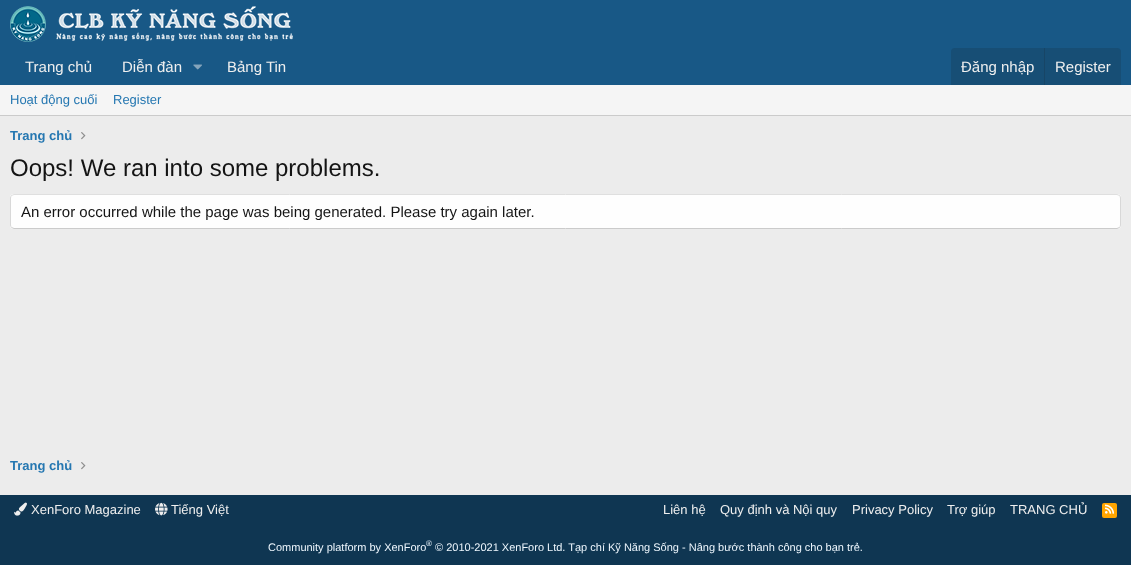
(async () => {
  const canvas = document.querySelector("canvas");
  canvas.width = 1131;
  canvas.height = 565;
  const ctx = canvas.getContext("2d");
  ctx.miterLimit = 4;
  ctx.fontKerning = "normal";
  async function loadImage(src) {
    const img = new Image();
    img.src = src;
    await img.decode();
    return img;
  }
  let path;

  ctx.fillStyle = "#ececec";
  ctx.fillRect(0, 0, 1131, 565);
  ctx.fillStyle = "#185886";
  ctx.fillRect(0, 0, 1131, 85);
  ctx.drawImage(await loadImage("img/1.png"), 10, 6, 283, 36);
  ctx.drawImage(await loadImage("img/2.png"), 193, 64, 9, 6);
  ctx.fillStyle = "#174e75";
  ctx.beginPath();
  ctx.roundRect(951, 48, 170, 37, [4, 4, 0, 0]);
  ctx.fill();
  for (const [x, y, w, h, color] of [
    [1044, 48, 1, 37, "#174566"],
    [0, 85, 1131, 30, "#f5f5f5"],
    [0, 115, 1131, 1, "#cbcbcb"],
  ]) {
    ctx.fillStyle = color;
    ctx.fillRect(x, y, w, h);
  }
  ctx.drawImage(await loadImage("img/3.png"), 81, 132, 5, 8);
  ctx.fillStyle = "#fefefe";
  ctx.beginPath();
  ctx.roundRect(10, 194, 1111, 35, 4);
  ctx.fill();
  path = new Path2D("M11.5 195.5L14 194.5H1117L1119.5 195.5");
  ctx.strokeStyle = "#dfdfdf";
  ctx.stroke(path);
  path = new Path2D("M1119.5 195.5C1120 196 1120.5 197 1120.5 198V225C1120.5 226 1120 227 1119.5 227.5");
  ctx.strokeStyle = "#d8d8d8";
  ctx.stroke(path);
  path = new Path2D("M1119.5 227.5L1117 228.5H14L11.5 227.5");
  ctx.strokeStyle = "#cbcbcb";
  ctx.stroke(path);
  path = new Path2D("M11.5 227.5C11 227 10.5 226 10.5 225V198C10.5 197 11 196 11.5 195.5");
  ctx.strokeStyle = "#d8d8d8";
  ctx.stroke(path);
  ctx.drawImage(await loadImage("img/3.png"), 81, 462, 5, 8);
  ctx.fillStyle = "#0f3652";
  ctx.fillRect(0, 495, 1131, 70);
  ctx.drawImage(await loadImage("img/4.png"), 14, 502, 13, 14);
  ctx.drawImage(await loadImage("img/5.png"), 155, 502, 13, 14);
  ctx.fillStyle = "#ffa500";
  ctx.beginPath();
  ctx.roundRect(1102, 503, 15, 15, 2);
  ctx.fill();
  ctx.drawImage(await loadImage("img/6.png"), 1105, 504, 10, 10);
  ctx.font = "15px Liberation Sans";
  ctx.fillStyle = "#efefef";
  for (const [text, x, y] of [
    ["Trang chủ", 25, 72],
    ["Diễn đàn", 122, 72],
    ["Bảng Tin", 227, 72],
    ["Đăng nhập", 961, 72],
    ["Register", 1055, 72],
  ]) {
    ctx.fillText(text, x, y);
  }
  ctx.font = "13px Liberation Sans";
  ctx.fillStyle = "#2577b1";
  ctx.fillText("Hoạt động cuối", 10, 104);
  ctx.fillText("Register", 113, 104);
  ctx.font = "bold 13px Liberation Sans";
  ctx.fillText("Trang chủ", 10, 140);
  ctx.font = "24px Liberation Sans";
  ctx.fillStyle = "#141414";
  ctx.fillText("Oops! We ran into some problems.", 10, 176);
  ctx.font = "15px Liberation Sans";
  ctx.fillText("An error occurred while the page was being generated. Please try again later.", 21, 217);
  ctx.font = "bold 13px Liberation Sans";
  ctx.fillStyle = "#2577b1";
  ctx.fillText("Trang chủ", 10, 470);
  ctx.font = "13px Liberation Sans";
  ctx.fillStyle = "#efefef";
  for (const [text, x, y] of [
    ["XenForo Magazine", 31, 514],
    ["Tiếng Việt", 171, 514],
    ["Liên hệ", 663, 514],
    ["Quy định và Nội quy", 720, 514],
    ["Privacy Policy", 852, 514],
    ["Trợ giúp", 947, 514],
    ["TRANG CHỦ", 1010, 514],
  ]) {
    ctx.fillText(text, x, y);
  }
  ctx.font = "11px Liberation Sans";
  ctx.fillStyle = "#edf6fd";
  ctx.fillText("Community platform by XenForo", 268, 551);
  ctx.font = "8px Liberation Sans";
  ctx.fillText("®", 426, 546);
  ctx.font = "11px Liberation Sans";
  ctx.fillText("© 2010-2021 XenForo Ltd. Tạp chí Kỹ Năng Sống - Nâng bước thành công cho bạn trẻ.", 435, 551);
})();
